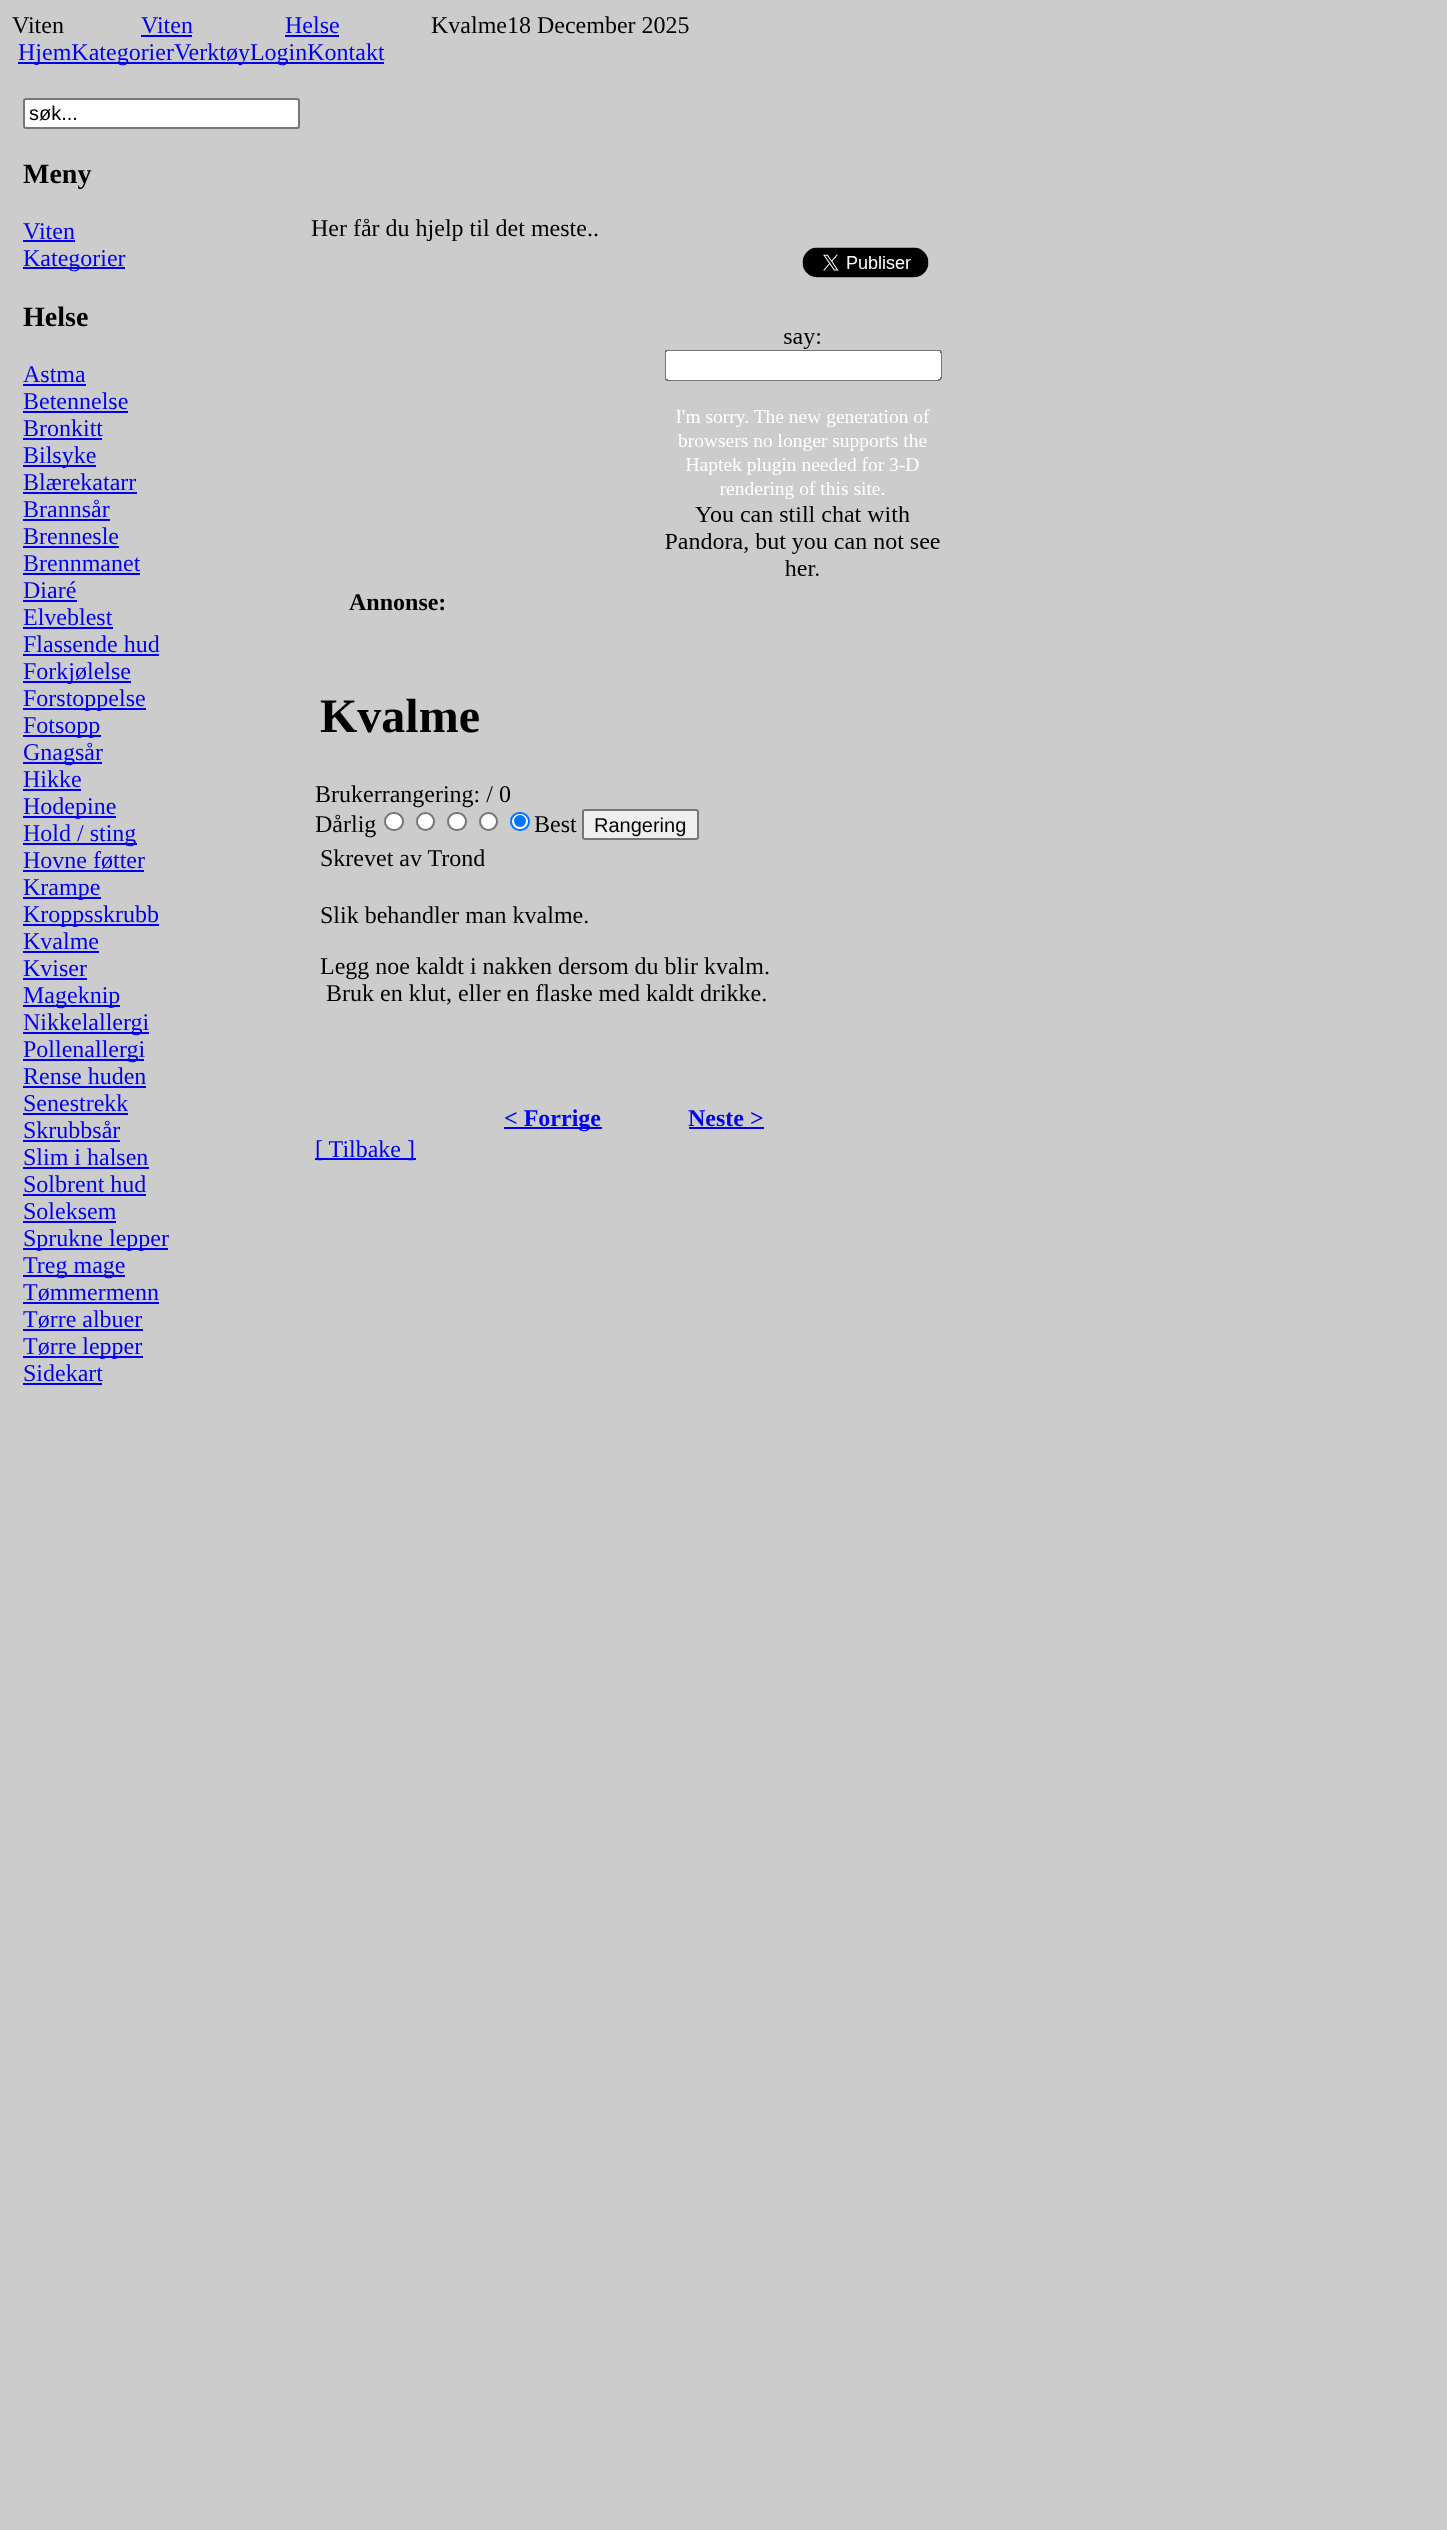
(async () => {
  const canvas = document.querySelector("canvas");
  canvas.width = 1447;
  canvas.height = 2530;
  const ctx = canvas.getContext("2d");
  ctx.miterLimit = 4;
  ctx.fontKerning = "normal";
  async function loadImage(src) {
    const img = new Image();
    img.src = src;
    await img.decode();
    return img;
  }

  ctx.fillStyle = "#cccccc";
  ctx.fillRect(0, 0, 1447, 2530);
  for (const [x, y, w, h, color] of [
    [141, 35, 51, 2, "#0000ee"],
    [285, 35, 54, 2, "#0000ee"],
    [18, 62, 366, 2, "#0000ee"],
  ]) {
    ctx.fillStyle = color;
    ctx.fillRect(x, y, w, h);
  }
  ctx.fillStyle = "#ffffff";
  ctx.beginPath();
  ctx.roundRect(24, 99, 275, 29, 2);
  ctx.fill();
  ctx.strokeStyle = "#767676";
  ctx.lineWidth = 2;
  ctx.stroke();
  for (const [x, y, w, h, color] of [
    [23, 240, 52, 2, "#0000ee"],
    [23, 267, 102, 2, "#0000ee"],
    [23, 384, 63, 2, "#0000ee"],
    [23, 411, 105, 2, "#0000ee"],
    [23, 438, 79, 2, "#0000ee"],
    [23, 465, 73, 2, "#0000ee"],
    [23, 492, 114, 2, "#0000ee"],
    [23, 519, 87, 2, "#0000ee"],
    [23, 546, 96, 2, "#0000ee"],
    [23, 573, 117, 2, "#0000ee"],
    [23, 600, 54, 2, "#0000ee"],
    [23, 627, 90, 2, "#0000ee"],
    [23, 654, 136, 2, "#0000ee"],
    [23, 681, 108, 2, "#0000ee"],
    [23, 708, 123, 2, "#0000ee"],
    [23, 735, 78, 2, "#0000ee"],
    [23, 762, 79, 2, "#0000ee"],
    [23, 789, 58, 2, "#0000ee"],
    [23, 816, 93, 2, "#0000ee"],
    [23, 843, 114, 2, "#0000ee"],
    [23, 870, 121, 2, "#0000ee"],
    [23, 897, 78, 2, "#0000ee"],
    [23, 924, 136, 2, "#0000ee"],
    [23, 951, 76, 2, "#0000ee"],
    [23, 978, 64, 2, "#0000ee"],
    [23, 1005, 97, 2, "#0000ee"],
    [23, 1032, 126, 2, "#0000ee"],
    [23, 1059, 121, 2, "#0000ee"],
    [23, 1086, 123, 2, "#0000ee"],
    [23, 1113, 105, 2, "#0000ee"],
    [23, 1140, 97, 2, "#0000ee"],
    [23, 1167, 126, 2, "#0000ee"],
    [23, 1194, 123, 2, "#0000ee"],
    [23, 1221, 93, 2, "#0000ee"],
    [23, 1248, 145, 2, "#0000ee"],
    [23, 1275, 102, 2, "#0000ee"],
    [23, 1302, 136, 2, "#0000ee"],
    [23, 1329, 120, 2, "#0000ee"],
    [23, 1356, 120, 2, "#0000ee"],
    [23, 1383, 79, 2, "#0000ee"],
  ]) {
    ctx.fillStyle = color;
    ctx.fillRect(x, y, w, h);
  }
  ctx.drawImage(await loadImage("img/1.png"), 802, 247, 127, 31);
  ctx.drawImage(await loadImage("img/2.png"), 665, 333, 277, 243);
  ctx.fillStyle = "#ffffff";
  ctx.beginPath();
  ctx.roundRect(385, 813, 18, 17, 8.5);
  ctx.fill();
  ctx.stroke();
  ctx.beginPath();
  ctx.arc(425.5, 821.5, 8.5, 0, Math.PI * 2);
  ctx.fill();
  ctx.stroke();
  ctx.beginPath();
  ctx.roundRect(448, 813, 18, 17, 8.5);
  ctx.fill();
  ctx.stroke();
  ctx.beginPath();
  ctx.arc(488.5, 821.5, 8.5, 0, Math.PI * 2);
  ctx.fill();
  ctx.stroke();
  ctx.beginPath();
  ctx.roundRect(511, 813, 18, 17, 8.5);
  ctx.fill();
  ctx.strokeStyle = "#0075ff";
  ctx.stroke();
  ctx.fillStyle = "#0075ff";
  ctx.beginPath();
  ctx.arc(520, 821, 6, 0, Math.PI * 2);
  ctx.fill();
  ctx.fillStyle = "#efefef";
  ctx.beginPath();
  ctx.roundRect(583, 810, 115, 29, 2);
  ctx.fill();
  ctx.strokeStyle = "#767676";
  ctx.stroke();
  for (const [x, y, w, h, color] of [
    [504, 1127, 98, 2, "#0000ee"],
    [689, 1127, 75, 2, "#0000ee"],
    [315, 1158, 101, 2, "#0000ee"],
  ]) {
    ctx.fillStyle = color;
    ctx.fillRect(x, y, w, h);
  }
  ctx.font = "24px Liberation Serif";
  ctx.fillStyle = "#000000";
  ctx.fillText("Viten", 12, 33);
  ctx.fillStyle = "#0000ee";
  ctx.fillText("Viten", 141, 33);
  ctx.fillText("Helse", 285, 33);
  ctx.fillStyle = "#000000";
  ctx.fillText("Kvalme18 December 2025", 431, 33);
  ctx.fillStyle = "#0000ee";
  ctx.fillText("HjemKategorierVerktøyLoginKontakt", 18, 60);
  ctx.font = "20px Liberation Sans";
  ctx.fillStyle = "#000000";
  ctx.fillText("søk...", 29, 120);
  ctx.font = "bold 28px Liberation Serif";
  ctx.fillText("Meny", 23, 183);
  ctx.font = "24px Liberation Serif";
  ctx.fillStyle = "#0000ee";
  ctx.fillText("Viten", 23, 239);
  ctx.fillText("Kategorier", 23, 266);
  ctx.font = "bold 28px Liberation Serif";
  ctx.fillStyle = "#000000";
  ctx.fillText("Helse", 23, 326);
  ctx.font = "24px Liberation Serif";
  ctx.fillStyle = "#0000ee";
  for (const [text, x, y] of [
    ["Astma", 23, 382],
    ["Betennelse", 23, 409],
    ["Bronkitt", 23, 436],
    ["Bilsyke", 23, 463],
    ["Blærekatarr", 23, 490],
    ["Brannsår", 23, 517],
    ["Brennesle", 23, 544],
    ["Brennmanet", 23, 571],
    ["Diaré", 23, 598],
    ["Elveblest", 23, 625],
    ["Flassende hud", 23, 652],
    ["Forkjølelse", 23, 679],
    ["Forstoppelse", 23, 706],
    ["Fotsopp", 23, 733],
    ["Gnagsår", 23, 760],
    ["Hikke", 23, 787],
    ["Hodepine", 23, 814],
    ["Hold / sting", 23, 841],
    ["Hovne føtter", 23, 868],
    ["Krampe", 23, 895],
    ["Kroppsskrubb", 23, 922],
    ["Kvalme", 23, 949],
    ["Kviser", 23, 976],
    ["Mageknip", 23, 1003],
    ["Nikkelallergi", 23, 1030],
    ["Pollenallergi", 23, 1057],
    ["Rense huden", 23, 1084],
    ["Senestrekk", 23, 1111],
    ["Skrubbsår", 23, 1138],
    ["Slim i halsen", 23, 1165],
    ["Solbrent hud", 23, 1192],
    ["Soleksem", 23, 1219],
    ["Sprukne lepper", 23, 1246],
    ["Treg mage", 23, 1273],
    ["Tømmermenn", 23, 1300],
    ["Tørre albuer", 23, 1327],
    ["Tørre lepper", 23, 1354],
    ["Sidekart", 23, 1381],
  ]) {
    ctx.fillText(text, x, y);
  }
  ctx.fillStyle = "#000000";
  ctx.fillText("Her får du hjelp til det meste..", 311, 236);
  ctx.font = "bold 24px Liberation Serif";
  ctx.fillText("Annonse:", 349, 610);
  ctx.font = "bold 48px Liberation Serif";
  ctx.fillText("Kvalme", 320, 732);
  ctx.font = "24px Liberation Serif";
  for (const [text, x, y] of [
    ["Brukerrangering: / 0", 315, 802],
    ["Dårlig", 315, 832],
    ["Best", 534, 832],
  ]) {
    ctx.fillText(text, x, y);
  }
  ctx.font = "20px Liberation Sans";
  ctx.fillText("Rangering", 594, 832);
  ctx.font = "24px Liberation Serif";
  for (const [text, x, y] of [
    ["Skrevet av Trond", 320, 866],
    ["Slik behandler man kvalme.", 320, 923],
    ["Legg noe kaldt i nakken dersom du blir kvalm.", 320, 974],
    ["Bruk en klut, eller en flaske med kaldt drikke.", 326, 1001],
  ]) {
    ctx.fillText(text, x, y);
  }
  ctx.font = "bold 24px Liberation Serif";
  ctx.fillStyle = "#0000ee";
  ctx.fillText("< Forrige", 504, 1126);
  ctx.fillText("Neste >", 688, 1126);
  ctx.font = "24px Liberation Serif";
  ctx.fillText("[ Tilbake ]", 315, 1157);
})();
